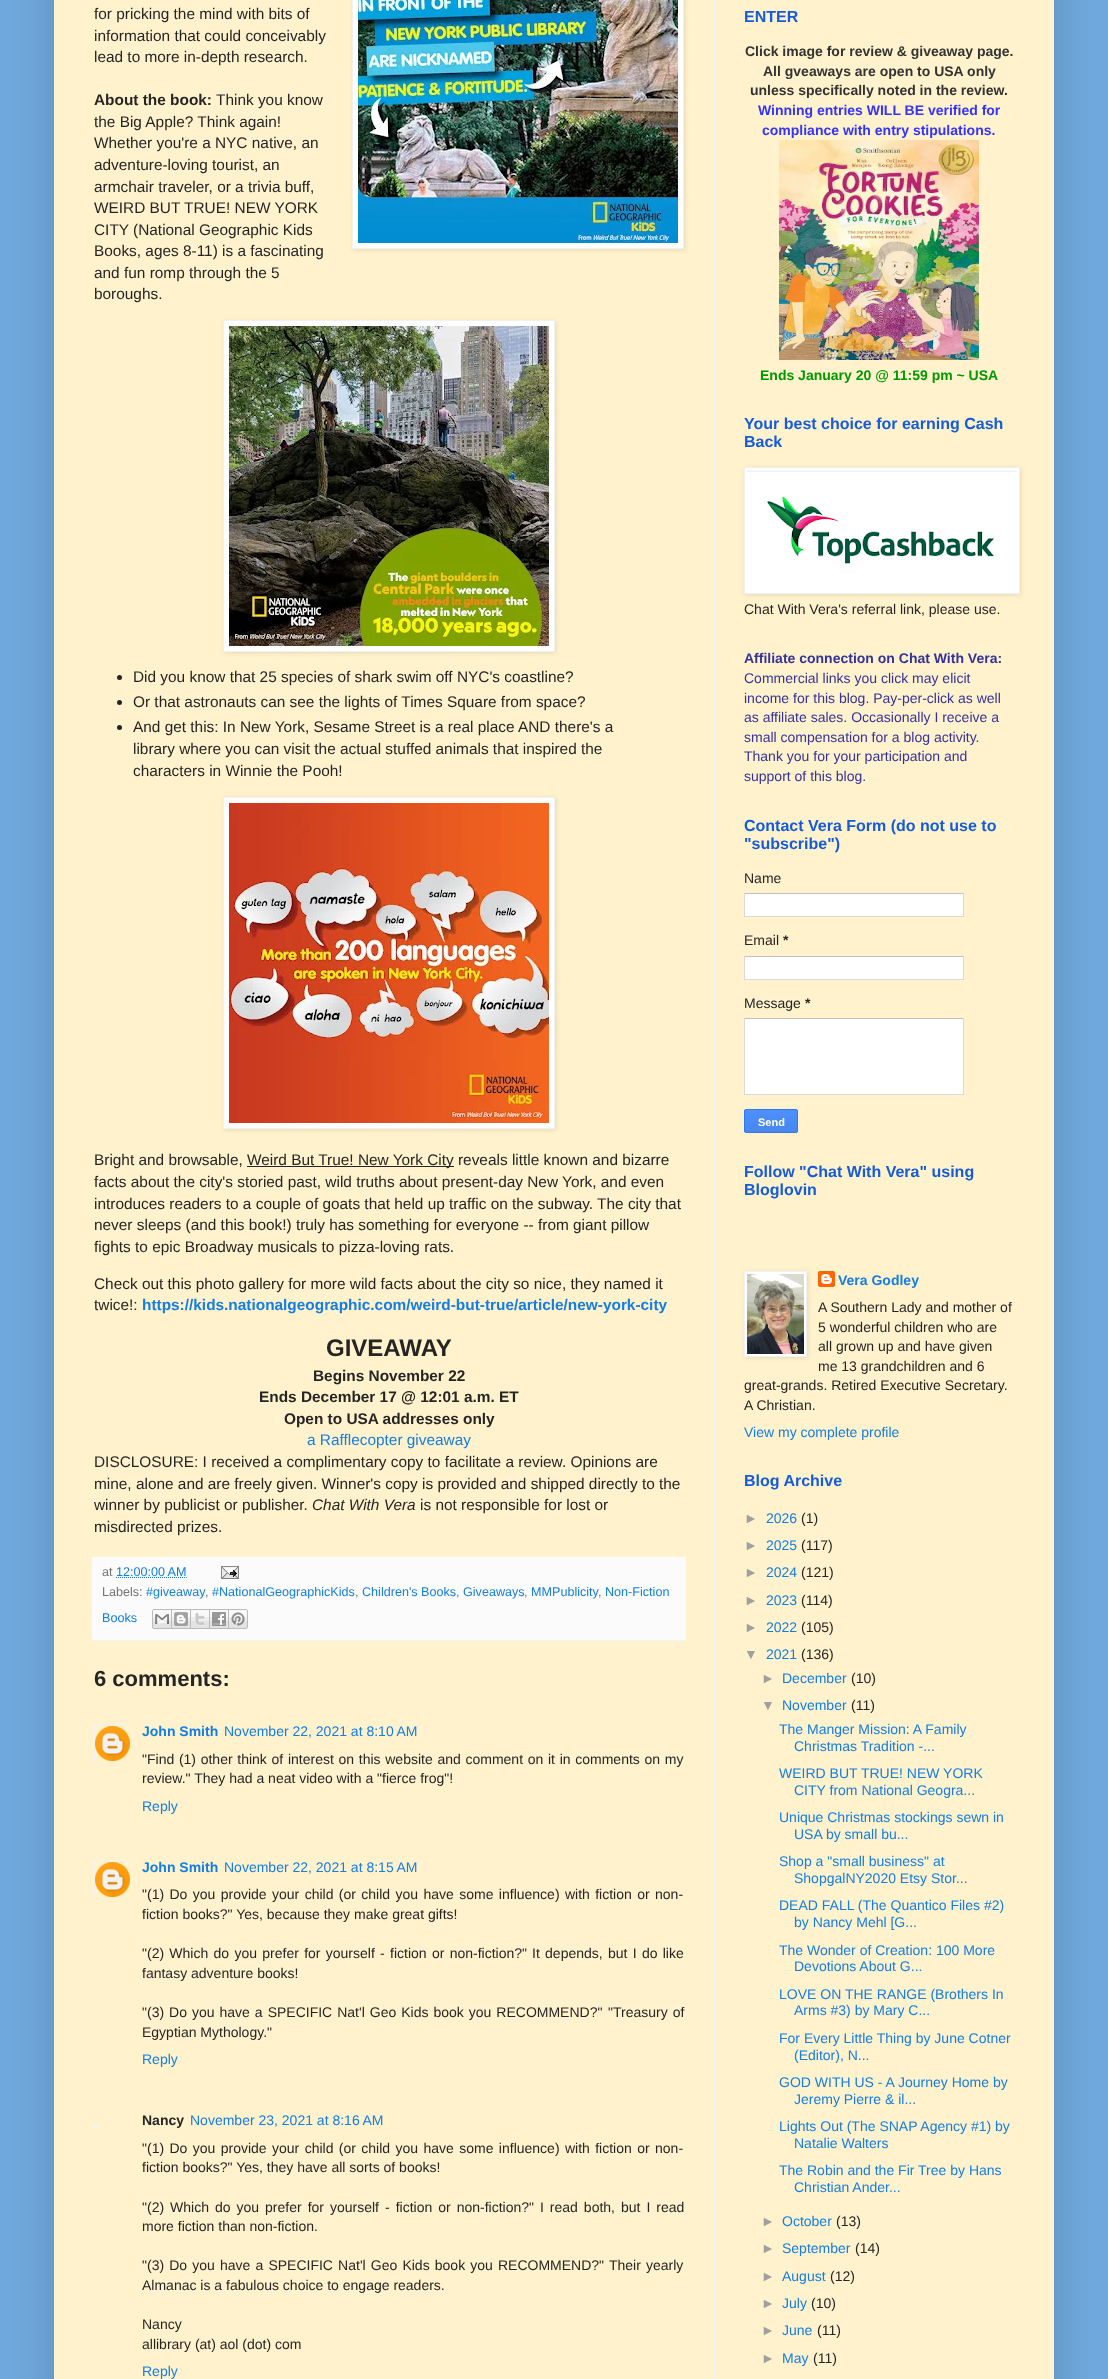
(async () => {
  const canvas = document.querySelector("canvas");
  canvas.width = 1108;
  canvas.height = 2379;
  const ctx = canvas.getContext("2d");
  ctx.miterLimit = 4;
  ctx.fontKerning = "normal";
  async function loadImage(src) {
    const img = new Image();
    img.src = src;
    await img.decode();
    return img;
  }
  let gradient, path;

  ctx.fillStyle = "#6fa8dc";
  ctx.fillRect(0, 0, 1108, 2379);
  ctx.fillStyle = "rgba(0, 0, 0, 0.15)";
  ctx.filter = "blur(20px)";
  ctx.beginPath();
  ctx.rect(54, -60, 1000, 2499);
  ctx.fill();
  ctx.filter = "none";
  ctx.fillStyle = "#fff2cc";
  ctx.fillRect(54, 0, 1000, 2379);
  ctx.fillStyle = "#f1f1f1";
  ctx.fillRect(714, 0, 1, 2379);
  ctx.fillStyle = "rgba(0, 0, 0, 0.1)";
  ctx.filter = "blur(2.5px)";
  ctx.beginPath();
  ctx.rect(353, -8, 332, 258);
  ctx.fill();
  ctx.filter = "none";
  ctx.fillStyle = "#ffffff";
  ctx.beginPath();
  ctx.rect(352.5, -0.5, 331, 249);
  ctx.fill();
  ctx.strokeStyle = "#f1f1f1";
  ctx.stroke();
  ctx.drawImage(await loadImage("img/1.png"), 358, 0, 320, 243);
  ctx.fillStyle = "rgba(0, 0, 0, 0.1)";
  ctx.filter = "blur(2.5px)";
  ctx.beginPath();
  ctx.rect(224, 321, 332, 332);
  ctx.fill();
  ctx.filter = "none";
  ctx.fillStyle = "#ffffff";
  ctx.beginPath();
  ctx.rect(223.5, 320.5, 331, 331);
  ctx.fill();
  ctx.stroke();
  ctx.drawImage(await loadImage("img/2.png"), 229, 326, 320, 320);
  ctx.fillStyle = "#262525";
  ctx.beginPath();
  ctx.arc(119.5, 677.5, 2.5, 0, Math.PI * 2);
  ctx.fill();
  ctx.beginPath();
  ctx.arc(119.5, 702.5, 2.5, 0, Math.PI * 2);
  ctx.fill();
  ctx.beginPath();
  ctx.arc(119.5, 727.5, 2.5, 0, Math.PI * 2);
  ctx.fill();
  ctx.fillStyle = "rgba(0, 0, 0, 0.1)";
  ctx.filter = "blur(2.5px)";
  ctx.beginPath();
  ctx.rect(224, 798, 332, 332);
  ctx.fill();
  ctx.filter = "none";
  ctx.fillStyle = "#ffffff";
  ctx.beginPath();
  ctx.rect(223.5, 797.5, 331, 331);
  ctx.fill();
  ctx.stroke();
  ctx.drawImage(await loadImage("img/3.png"), 229, 803, 320, 320);
  for (const [x, y, w, h, color] of [
    [247, 1166, 207, 1, "#262525"],
    [92, 1557, 594, 83, "#fbfbfb"],
    [92, 1640, 594, 1, "#f1f1f1"],
  ]) {
    ctx.fillStyle = color;
    ctx.fillRect(x, y, w, h);
  }
  path = new Path2D("M116 1577.5H186.5");
  ctx.strokeStyle = "#137ee4";
  ctx.setLineDash([1, 1]);
  ctx.stroke(path);
  ctx.drawImage(await loadImage("img/4.png"), 221, 1566, 18, 13);
  ctx.drawImage(await loadImage("img/5.png"), 152, 1609, 20, 20);
  ctx.drawImage(await loadImage("img/6.png"), 172, 1609, 19, 20);
  ctx.drawImage(await loadImage("img/7.png"), 191, 1609, 19, 20);
  ctx.drawImage(await loadImage("img/8.png"), 210, 1609, 19, 20);
  ctx.drawImage(await loadImage("img/9.png"), 229, 1609, 19, 20);
  ctx.save();
  ctx.beginPath();
  ctx.rect(94, 1725, 36, 36);
  ctx.clip();
  ctx.strokeStyle = "#f1f1f1";
  ctx.setLineDash([]);
  ctx.strokeRect(94.5, 1725.5, 36, 36);
  ctx.restore();
  ctx.drawImage(await loadImage("img/10.png"), 95, 1726, 35, 35);
  ctx.save();
  ctx.beginPath();
  ctx.rect(94, 1861, 36, 36);
  ctx.clip();
  ctx.strokeStyle = "#f1f1f1";
  ctx.setLineDash([]);
  ctx.strokeRect(94.5, 1861.5, 36, 36);
  ctx.restore();
  ctx.drawImage(await loadImage("img/10.png"), 95, 1862, 35, 35);
  ctx.strokeStyle = "#f1f1f1";
  ctx.setLineDash([]);
  ctx.strokeRect(94.5, 2125.5, 2, 2);
  ctx.drawImage(await loadImage("img/11.png"), 779, 140, 200, 220);
  ctx.fillStyle = "rgba(0, 0, 0, 0.1)";
  ctx.filter = "blur(2.5px)";
  ctx.beginPath();
  ctx.rect(745, 468, 276, 127);
  ctx.fill();
  ctx.filter = "none";
  ctx.fillStyle = "#ffffff";
  ctx.beginPath();
  ctx.rect(744.5, 467.5, 275, 126);
  ctx.fill();
  ctx.stroke();
  ctx.drawImage(await loadImage("img/12.png"), 747, 470, 270, 94);
  for (const [x, y, w, h, color] of [
    [745, 894, 218, 22, "#ffffff"],
    [744, 893, 220, 1, "#c0c0c0"],
    [963, 893, 1, 24, "#d9d9d9"],
    [744, 916, 220, 1, "#d9d9d9"],
    [744, 893, 1, 24, "#d9d9d9"],
    [745, 957, 218, 22, "#ffffff"],
    [744, 956, 220, 1, "#c0c0c0"],
    [963, 956, 1, 24, "#d9d9d9"],
    [744, 979, 220, 1, "#d9d9d9"],
    [744, 956, 1, 24, "#d9d9d9"],
    [745, 1019, 218, 75, "#ffffff"],
    [744, 1018, 220, 1, "#c0c0c0"],
    [963, 1018, 1, 77, "#d9d9d9"],
    [744, 1094, 220, 1, "#d9d9d9"],
    [744, 1018, 1, 77, "#d9d9d9"],
  ]) {
    ctx.fillStyle = color;
    ctx.fillRect(x, y, w, h);
  }
  ctx.save();
  ctx.beginPath();
  ctx.roundRect(744, 1109, 54, 24, 2);
  ctx.clip();
  gradient = ctx.createLinearGradient(771, 1110, 771, 1132);
  gradient.addColorStop(0, "#4d90fe");
  gradient.addColorStop(1, "#4787ed");
  ctx.fillStyle = gradient;
  ctx.fillRect(744, 1110, 54, 22);
  ctx.restore();
  ctx.beginPath();
  ctx.roundRect(744.5, 1109.5, 53, 23, 1.5);
  ctx.strokeStyle = "#3079ed";
  ctx.stroke();
  ctx.fillStyle = "rgba(0, 0, 0, 0.1)";
  ctx.filter = "blur(2.5px)";
  ctx.beginPath();
  ctx.rect(745, 1272, 63, 86);
  ctx.fill();
  ctx.filter = "none";
  ctx.fillStyle = "#ffffff";
  ctx.beginPath();
  ctx.rect(744.5, 1271.5, 62, 85);
  ctx.fill();
  ctx.strokeStyle = "#f1f1f1";
  ctx.stroke();
  ctx.drawImage(await loadImage("img/13.png"), 747, 1274, 57, 80);
  ctx.drawImage(await loadImage("img/14.png"), 818, 1271, 17, 16);
  ctx.font = "15.4px Liberation Sans";
  ctx.fillStyle = "#262525";
  for (const [text, x, y] of [
    ["for pricking the mind with bits of", 94, 19],
    ["information that could conceivably", 94, 41],
    ["lead to more in-depth research.", 94, 62],
  ]) {
    ctx.fillText(text, x, y);
  }
  ctx.font = "bold 15.4px Liberation Sans";
  ctx.fillText("About the book:", 94, 105);
  ctx.font = "15.4px Liberation Sans";
  for (const [text, x, y] of [
    ["Think you know", 216, 105],
    ["the Big Apple? Think again!", 94, 127],
    ["Whether you're a NYC native, an", 94, 148],
    ["adventure-loving tourist, an", 94, 170],
    ["armchair traveler, or a trivia buff,", 94, 192],
    ["WEIRD BUT TRUE! NEW YORK", 94, 213],
    ["CITY (National Geographic Kids", 94, 235],
    ["Books, ages 8-11) is a fascinating", 94, 256],
    ["and fun romp through the 5", 94, 278],
    ["boroughs.", 94, 299],
    ["Did you know that 25 species of shark swim off NYC's coastline?", 133, 682],
    ["Or that astronauts can see the lights of Times Square from space?", 133, 707],
    ["And get this: In New York, Sesame Street is a real place AND there's a", 133, 732],
    ["library where you can visit the actual stuffed animals that inspired the", 133, 754],
    ["characters in Winnie the Pooh!", 133, 776],
    ["Bright and browsable,", 94, 1165],
    ["Weird But True! New York City reveals little known and bizarre", 247, 1165],
    ["facts about the city's storied past, wild truths about present-day New York, and even", 94, 1187],
    ["introduces readers to a couple of goats that held up traffic on the subway. The city that", 94, 1209],
    ["never sleeps (and this book!) truly has something for everyone -- from giant pillow", 94, 1230],
    ["fights to epic Broadway musicals to pizza-loving rats.", 94, 1252],
    ["Check out this photo gallery for more wild facts about the city so nice, they named it", 94, 1289],
    ["twice!:", 94, 1310],
  ]) {
    ctx.fillText(text, x, y);
  }
  ctx.font = "bold 15.4px Liberation Sans";
  ctx.fillStyle = "#137ee4";
  ctx.fillText("https://kids.nationalgeographic.com/weird-but-true/article/new-york-city", 142, 1310);
  ctx.font = "bold 24px Liberation Sans";
  ctx.fillStyle = "#262525";
  ctx.fillText("GIVEAWAY", 326, 1356);
  ctx.font = "bold 15.4px Liberation Sans";
  for (const [text, x, y] of [
    ["Begins November 22", 313, 1381],
    ["Ends December 17 @ 12:01 a.m. ET", 259, 1402],
    ["Open to USA addresses only", 284, 1424],
  ]) {
    ctx.fillText(text, x, y);
  }
  ctx.font = "15.4px Liberation Sans";
  ctx.fillStyle = "#137ee4";
  ctx.fillText("a Rafflecopter giveaway", 307, 1445);
  ctx.fillStyle = "#262525";
  for (const [text, x, y] of [
    ["DISCLOSURE: I received a complimentary copy to facilitate a review. Opinions are", 94, 1467],
    ["mine, alone and are freely given. Winner's copy is provided and shipped directly to the", 94, 1489],
    ["winner by publicist or publisher.", 94, 1510],
  ]) {
    ctx.fillText(text, x, y);
  }
  ctx.font = "italic 15.4px Liberation Sans";
  ctx.fillText("Chat With Vera", 312, 1510);
  ctx.font = "15.4px Liberation Sans";
  ctx.fillText("is not responsible for lost or", 420, 1510);
  ctx.fillText("misdirected prizes.", 94, 1532);
  ctx.font = "12.6px Liberation Sans";
  ctx.fillStyle = "#747474";
  ctx.fillText("at", 102, 1576);
  ctx.fillStyle = "#137ee4";
  ctx.fillText("12:00:00 AM", 116, 1576);
  ctx.fillStyle = "#747474";
  ctx.fillText("Labels:", 102, 1596);
  ctx.fillStyle = "#137ee4";
  ctx.fillText("#giveaway", 146, 1596);
  ctx.fillStyle = "#747474";
  ctx.fillText(",", 205, 1596);
  ctx.fillStyle = "#137ee4";
  ctx.fillText("#NationalGeographicKids", 212, 1596);
  ctx.fillStyle = "#747474";
  ctx.fillText(",", 355, 1596);
  ctx.fillStyle = "#137ee4";
  ctx.fillText("Children's Books", 362, 1596);
  ctx.fillStyle = "#747474";
  ctx.fillText(",", 456, 1596);
  ctx.fillStyle = "#137ee4";
  ctx.fillText("Giveaways", 463, 1596);
  ctx.fillStyle = "#747474";
  ctx.fillText(",", 524, 1596);
  ctx.fillStyle = "#137ee4";
  ctx.fillText("MMPublicity", 531, 1596);
  ctx.fillText("Non-Fiction", 605, 1596);
  ctx.fillStyle = "#747474";
  ctx.fillText(",", 598, 1596);
  ctx.fillStyle = "#137ee4";
  ctx.fillText("Books", 102, 1622);
  ctx.font = "bold 22px Liberation Sans";
  ctx.fillStyle = "#262525";
  ctx.fillText("6 comments:", 94, 1686);
  ctx.font = "bold 14px Liberation Sans";
  ctx.fillStyle = "#137ee4";
  ctx.fillText("John Smith", 142, 1736);
  ctx.font = "14px Liberation Sans";
  ctx.fillText("November 22, 2021 at 8:10 AM", 224, 1736);
  ctx.wordSpacing = "0.8px";
  ctx.fillStyle = "#262525";
  ctx.fillText("\"Find (1) other think of interest on this website and comment on it in comments on my", 142, 1764);
  ctx.wordSpacing = "0px";
  ctx.fillText("review.\" They had a neat video with a \"fierce frog\"!", 142, 1783);
  ctx.fillStyle = "#137ee4";
  ctx.fillText("Reply", 142, 1811);
  ctx.font = "bold 14px Liberation Sans";
  ctx.fillText("John Smith", 142, 1872);
  ctx.font = "14px Liberation Sans";
  ctx.fillText("November 22, 2021 at 8:15 AM", 224, 1872);
  ctx.wordSpacing = "1.5px";
  ctx.fillStyle = "#262525";
  ctx.fillText("\"(1) Do you provide your child (or child you have some influence) with fiction or non-", 142, 1899);
  ctx.wordSpacing = "0px";
  ctx.fillText("fiction books?\" Yes, because they make great gifts!", 142, 1919);
  ctx.wordSpacing = "1.4px";
  ctx.fillText("\"(2) Which do you prefer for yourself - fiction or non-fiction?\"", 142, 1958);
  ctx.fillText("It depends, but I do like", 532, 1958);
  ctx.wordSpacing = "0px";
  ctx.fillText("fantasy adventure books!", 142, 1978);
  ctx.wordSpacing = "1.1px";
  ctx.fillText("\"(3) Do you have a SPECIFIC Nat'l Geo Kids book you RECOMMEND?\"", 142, 2017);
  ctx.fillText("\"Treasury of", 608, 2017);
  ctx.wordSpacing = "0px";
  ctx.fillText("Egyptian Mythology.\"", 142, 2037);
  ctx.fillStyle = "#137ee4";
  ctx.fillText("Reply", 142, 2064);
  ctx.font = "bold 14px Liberation Sans";
  ctx.fillStyle = "#262525";
  ctx.fillText("Nancy", 142, 2125);
  ctx.font = "14px Liberation Sans";
  ctx.fillStyle = "#137ee4";
  ctx.fillText("November 23, 2021 at 8:16 AM", 190, 2125);
  ctx.wordSpacing = "1.5px";
  ctx.fillStyle = "#262525";
  ctx.fillText("\"(1) Do you provide your child (or child you have some influence) with fiction or non-", 142, 2153);
  ctx.wordSpacing = "0px";
  ctx.fillText("fiction books?\" Yes, they have all sorts of books!", 142, 2172);
  ctx.wordSpacing = "2.1px";
  ctx.fillText("\"(2) Which do you prefer for yourself - fiction or non-fiction?\" I read both, but I read", 142, 2212);
  ctx.wordSpacing = "0px";
  ctx.fillText("more fiction than non-fiction.", 142, 2231);
  ctx.wordSpacing = "1.25px";
  ctx.fillText("\"(3) Do you have a SPECIFIC Nat'l Geo Kids book you RECOMMEND?\" Their yearly", 142, 2270);
  ctx.wordSpacing = "0px";
  for (const [text, x, y] of [
    ["Almanac is a fabulous choice to engage readers.", 142, 2290],
    ["Nancy", 142, 2329],
    ["allibrary (at) aol (dot) com", 142, 2349],
  ]) {
    ctx.fillText(text, x, y);
  }
  ctx.fillStyle = "#137ee4";
  ctx.fillText("Reply", 142, 2376);
  ctx.font = "bold 16px Liberation Sans";
  ctx.fillStyle = "#145cda";
  ctx.fillText("ENTER", 744, 22);
  ctx.font = "bold 14px Liberation Sans";
  ctx.fillStyle = "#333333";
  for (const [text, x, y] of [
    ["Click image for review & giveaway page.", 745, 56],
    ["All gveaways are open to USA only", 763, 76],
    ["unless specifically noted in the review.", 750, 95],
  ]) {
    ctx.fillText(text, x, y);
  }
  ctx.fillStyle = "#3333ff";
  ctx.fillText("Winning entries WILL BE verified for", 758, 115);
  ctx.fillText("compliance with entry stipulations.", 762, 135);
  ctx.fillStyle = "#009900";
  ctx.fillText("Ends January 20 @ 11:59 pm ~ USA", 760, 380);
  ctx.font = "bold 16px Liberation Sans";
  ctx.fillStyle = "#145cda";
  ctx.fillText("Your best choice for earning Cash", 744, 429);
  ctx.fillText("Back", 744, 447);
  ctx.font = "14px Liberation Sans";
  ctx.fillStyle = "#262525";
  ctx.fillText("Chat With Vera's referral link, please use.", 744, 614);
  ctx.font = "bold 14px Liberation Sans";
  ctx.fillStyle = "#333399";
  ctx.fillText("Affiliate connection on Chat With Vera:", 744, 663);
  ctx.font = "14px Liberation Sans";
  for (const [text, x, y] of [
    ["Commercial links you click may elicit", 744, 683],
    ["income for this blog. Pay-per-click as well", 744, 703],
    ["as affiliate sales. Occasionally I receive a", 744, 722],
    ["small compensation for a blog activity.", 744, 742],
    ["Thank you for your participation and", 744, 761],
    ["support of this blog.", 744, 781],
  ]) {
    ctx.fillText(text, x, y);
  }
  ctx.font = "bold 16px Liberation Sans";
  ctx.fillStyle = "#145cda";
  ctx.fillText("Contact Vera Form (do not use to", 744, 831);
  ctx.fillText("\"subscribe\")", 744, 849);
  ctx.font = "14px Liberation Sans";
  ctx.fillStyle = "#262525";
  ctx.fillText("Name", 744, 883);
  ctx.fillText("Email", 744, 945);
  ctx.font = "bold 14px Liberation Sans";
  ctx.fillText("*", 783, 945);
  ctx.font = "14px Liberation Sans";
  ctx.fillText("Message", 744, 1008);
  ctx.font = "bold 14px Liberation Sans";
  ctx.fillText("*", 805, 1008);
  ctx.font = "bold 11px Liberation Sans";
  ctx.fillStyle = "#ffffff";
  ctx.fillText("Send", 758, 1126);
  ctx.font = "bold 16px Liberation Sans";
  ctx.fillStyle = "#145cda";
  ctx.fillText("Follow \"Chat With Vera\" using", 744, 1177);
  ctx.fillText("Bloglovin", 744, 1195);
  ctx.font = "bold 14px Liberation Sans";
  ctx.fillStyle = "#137ee4";
  ctx.fillText("Vera Godley", 838, 1285);
  ctx.font = "14px Liberation Sans";
  ctx.fillStyle = "#262525";
  for (const [text, x, y] of [
    ["A Southern Lady and mother of", 818, 1312],
    ["5 wonderful children who are", 818, 1332],
    ["all grown up and have given", 818, 1351],
    ["me 13 grandchildren and 6", 818, 1371],
    ["great-grands. Retired Executive Secretary.", 744, 1390],
    ["A Christian.", 744, 1410],
  ]) {
    ctx.fillText(text, x, y);
  }
  ctx.fillStyle = "#137ee4";
  ctx.fillText("View my complete profile", 744, 1437);
  ctx.font = "bold 16px Liberation Sans";
  ctx.fillStyle = "#145cda";
  ctx.fillText("Blog Archive", 744, 1486);
  ctx.font = "14px Liberation Sans";
  ctx.fillStyle = "#a0a0a0";
  ctx.fillText("►", 744, 1523);
  ctx.fillStyle = "#137ee4";
  ctx.fillText("2026", 766, 1523);
  ctx.fillStyle = "#262525";
  ctx.fillText("(1)", 801, 1523);
  ctx.fillStyle = "#a0a0a0";
  ctx.fillText("►", 744, 1550);
  ctx.fillStyle = "#137ee4";
  ctx.fillText("2025", 766, 1550);
  ctx.fillStyle = "#262525";
  ctx.fillText("(117)", 801, 1550);
  ctx.fillStyle = "#a0a0a0";
  ctx.fillText("►", 744, 1577);
  ctx.fillStyle = "#137ee4";
  ctx.fillText("2024", 766, 1577);
  ctx.fillStyle = "#262525";
  ctx.fillText("(121)", 801, 1577);
  ctx.fillStyle = "#a0a0a0";
  ctx.fillText("►", 744, 1605);
  ctx.fillStyle = "#137ee4";
  ctx.fillText("2023", 766, 1605);
  ctx.fillStyle = "#262525";
  ctx.fillText("(114)", 801, 1605);
  ctx.fillStyle = "#a0a0a0";
  ctx.fillText("►", 744, 1632);
  ctx.fillStyle = "#137ee4";
  ctx.fillText("2022", 766, 1632);
  ctx.fillStyle = "#262525";
  ctx.fillText("(105)", 801, 1632);
  ctx.fillStyle = "#a0a0a0";
  ctx.fillText("▼", 744, 1659);
  ctx.fillStyle = "#137ee4";
  ctx.fillText("2021", 766, 1659);
  ctx.fillStyle = "#262525";
  ctx.fillText("(136)", 801, 1659);
  ctx.fillStyle = "#a0a0a0";
  ctx.fillText("►", 761, 1683);
  ctx.fillStyle = "#137ee4";
  ctx.fillText("December", 782, 1683);
  ctx.fillStyle = "#262525";
  ctx.fillText("(10)", 851, 1683);
  ctx.fillStyle = "#a0a0a0";
  ctx.fillText("▼", 761, 1710);
  ctx.fillStyle = "#137ee4";
  ctx.fillText("November", 782, 1710);
  ctx.fillStyle = "#262525";
  ctx.fillText("(11)", 851, 1710);
  ctx.fillStyle = "#137ee4";
  for (const [text, x, y] of [
    ["The Manger Mission: A Family", 779, 1734],
    ["Christmas Tradition -...", 794, 1751],
    ["WEIRD BUT TRUE! NEW YORK", 779, 1778],
    ["CITY from National Geogra...", 794, 1795],
    ["Unique Christmas stockings sewn in", 779, 1822],
    ["USA by small bu...", 794, 1839],
    ["Shop a \"small business\" at", 779, 1866],
    ["ShopgalNY2020 Etsy Stor...", 794, 1883],
    ["DEAD FALL (The Quantico Files #2)", 779, 1910],
    ["by Nancy Mehl [G...", 794, 1927],
    ["The Wonder of Creation: 100 More", 779, 1955],
    ["Devotions About G...", 794, 1971],
    ["LOVE ON THE RANGE (Brothers In", 779, 1999],
    ["Arms #3) by Mary C...", 794, 2015],
    ["For Every Little Thing by June Cotner", 779, 2043],
    ["(Editor), N...", 794, 2060],
    ["GOD WITH US - A Journey Home by", 779, 2087],
    ["Jeremy Pierre & il...", 794, 2104],
    ["Lights Out (The SNAP Agency #1) by", 779, 2131],
    ["Natalie Walters", 794, 2148],
    ["The Robin and the Fir Tree by Hans", 779, 2175],
    ["Christian Ander...", 794, 2192],
  ]) {
    ctx.fillText(text, x, y);
  }
  ctx.fillStyle = "#a0a0a0";
  ctx.fillText("►", 761, 2226);
  ctx.fillStyle = "#137ee4";
  ctx.fillText("October", 782, 2226);
  ctx.fillStyle = "#262525";
  ctx.fillText("(13)", 836, 2226);
  ctx.fillStyle = "#a0a0a0";
  ctx.fillText("►", 761, 2253);
  ctx.fillStyle = "#137ee4";
  ctx.fillText("September", 782, 2253);
  ctx.fillStyle = "#262525";
  ctx.fillText("(14)", 855, 2253);
  ctx.fillStyle = "#a0a0a0";
  ctx.fillText("►", 761, 2281);
  ctx.fillStyle = "#137ee4";
  ctx.fillText("August", 782, 2281);
  ctx.fillStyle = "#262525";
  ctx.fillText("(12)", 830, 2281);
  ctx.fillStyle = "#a0a0a0";
  ctx.fillText("►", 761, 2308);
  ctx.fillStyle = "#137ee4";
  ctx.fillText("July", 782, 2308);
  ctx.fillStyle = "#262525";
  ctx.fillText("(10)", 811, 2308);
  ctx.fillStyle = "#a0a0a0";
  ctx.fillText("►", 761, 2335);
  ctx.fillStyle = "#137ee4";
  ctx.fillText("June", 782, 2335);
  ctx.fillStyle = "#262525";
  ctx.fillText("(11)", 817, 2335);
  ctx.fillStyle = "#a0a0a0";
  ctx.fillText("►", 761, 2363);
  ctx.fillStyle = "#137ee4";
  ctx.fillText("May", 782, 2363);
  ctx.fillStyle = "#262525";
  ctx.fillText("(11)", 813, 2363);
})();
